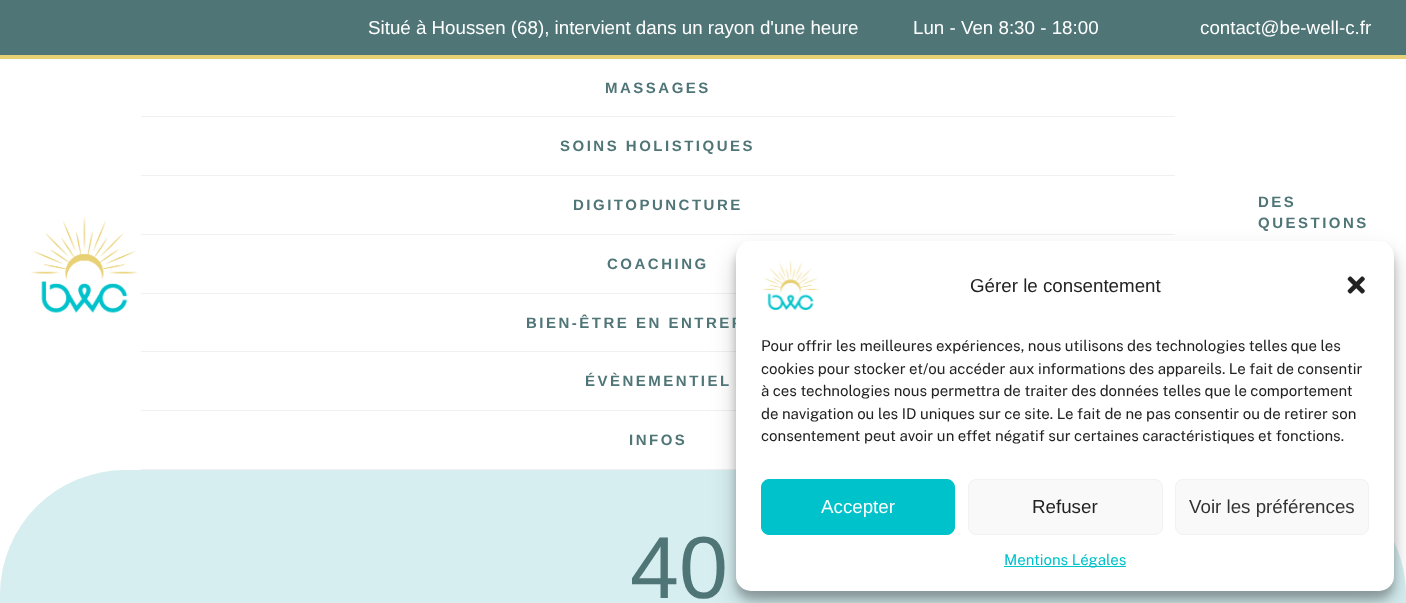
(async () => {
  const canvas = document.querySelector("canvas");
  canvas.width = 1406;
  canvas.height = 603;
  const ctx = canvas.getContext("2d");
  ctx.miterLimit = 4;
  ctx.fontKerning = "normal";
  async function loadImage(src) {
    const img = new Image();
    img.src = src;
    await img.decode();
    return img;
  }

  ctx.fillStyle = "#ffffff";
  ctx.fillRect(0, 0, 1406, 603);
  ctx.fillStyle = "#4f7577";
  ctx.fillRect(0, 0, 1406, 55);
  ctx.fillStyle = "#e8d074";
  ctx.fillRect(0, 55, 1406, 4);
  ctx.drawImage(await loadImage("img/1.png"), 30, 216, 109, 97);
  for (const [x, y, w, h, color] of [
    [141, 116, 1034, 1, "#f0f0f0"],
    [141, 175, 1034, 1, "#f0f0f0"],
    [141, 234, 1034, 1, "#f0f0f0"],
    [141, 293, 595, 1, "#f0f0f0"],
    [141, 351, 595, 1, "#f0f0f0"],
    [141, 410, 595, 1, "#f0f0f0"],
    [141, 469, 595, 1, "#f0f0f0"],
  ]) {
    ctx.fillStyle = color;
    ctx.fillRect(x, y, w, h);
  }
  ctx.fillStyle = "#d6eef0";
  ctx.beginPath();
  ctx.roundRect(0, 470, 1406, 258, 125);
  ctx.fill();
  ctx.fillStyle = "rgba(0, 0, 0, 0.23)";
  ctx.filter = "blur(4px)";
  ctx.beginPath();
  ctx.roundRect(736, 249, 658, 350, 15);
  ctx.fill();
  ctx.filter = "none";
  ctx.fillStyle = "rgba(0, 0, 0, 0.19)";
  ctx.filter = "blur(12.5px)";
  ctx.beginPath();
  ctx.roundRect(736, 254, 658, 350, 15);
  ctx.fill();
  ctx.filter = "none";
  ctx.font = "18.75px Liberation Sans";
  ctx.fillStyle = "#ffffff";
  for (const [text, x, y] of [
    ["Situé à Houssen (68), intervient dans un rayon d'une heure", 368, 34],
    ["Lun - Ven 8:30 - 18:00", 913, 34],
    ["contact@be-well-c.fr", 1200, 34],
  ]) {
    ctx.fillText(text, x, y);
  }
  ctx.letterSpacing = "2.5px";
  ctx.font = "bold 15px Liberation Sans";
  ctx.fillStyle = "#4f7577";
  for (const [text, x, y] of [
    ["MASSAGES", 605, 93],
    ["SOINS HOLISTIQUES", 560, 151],
    ["DIGITOPUNCTURE", 573, 210],
    ["COACHING", 607, 269],
    ["BIEN-ÊTRE EN ENTREP", 526, 328],
    ["ÉVÈNEMENTIEL", 585, 386],
    ["INFOS", 629, 445],
    ["DES", 1258, 207],
    ["QUESTIONS", 1258, 228],
  ]) {
    ctx.fillText(text, x, y);
  }
  ctx.letterSpacing = "0px";
  ctx.font = "88px Liberation Sans";
  ctx.fillText("40", 630, 598);
  ctx.fillStyle = "#ffffff";
  ctx.beginPath();
  ctx.roundRect(736, 241, 658, 350, 15);
  ctx.fill();
  ctx.drawImage(await loadImage("img/2.png"), 762, 260, 57, 50);
  ctx.font = "18.75px Liberation Sans";
  ctx.fillStyle = "#222222";
  ctx.fillText("Gérer le consentement", 970, 292);
  ctx.drawImage(await loadImage("img/3.png"), 1347, 276, 18, 18);
  ctx.font = "15px Public Sans";
  for (const [text, x, y] of [
    ["Pour offrir les meilleures expériences, nous utilisons des technologies telles que les", 761, 351],
    ["cookies pour stocker et/ou accéder aux informations des appareils. Le fait de consentir", 761, 374],
    ["à ces technologies nous permettra de traiter des données telles que le comportement", 761, 396],
    ["de navigation ou les ID uniques sur ce site. Le fait de ne pas consentir ou de retirer son", 761, 419],
    ["consentement peut avoir un effet négatif sur certaines caractéristiques et fonctions.", 761, 441],
  ]) {
    ctx.fillText(text, x, y);
  }
  ctx.fillStyle = "#00c2cb";
  ctx.beginPath();
  ctx.roundRect(761.5, 479.5, 193, 55, 7.5);
  ctx.fill();
  ctx.strokeStyle = "#00c2cb";
  ctx.stroke();
  ctx.font = "18.75px Liberation Sans";
  ctx.fillStyle = "#ffffff";
  ctx.fillText("Accepter", 821, 513);
  ctx.fillStyle = "#f9f9f9";
  ctx.beginPath();
  ctx.roundRect(968.5, 479.5, 194, 55, 7.5);
  ctx.fill();
  ctx.strokeStyle = "#f2f2f2";
  ctx.stroke();
  ctx.fillStyle = "#222222";
  ctx.fillText("Refuser", 1032, 513);
  ctx.fillStyle = "#f9f9f9";
  ctx.beginPath();
  ctx.roundRect(1175.5, 479.5, 193, 55, 7.5);
  ctx.fill();
  ctx.stroke();
  ctx.fillStyle = "#333333";
  ctx.fillText("Voir les préférences", 1189, 513);
  ctx.fillStyle = "#00c2cb";
  ctx.fillRect(1004, 566, 122, 1);
  ctx.font = "15px Public Sans";
  ctx.fillText("Mentions Légales", 1004, 565);
})();
